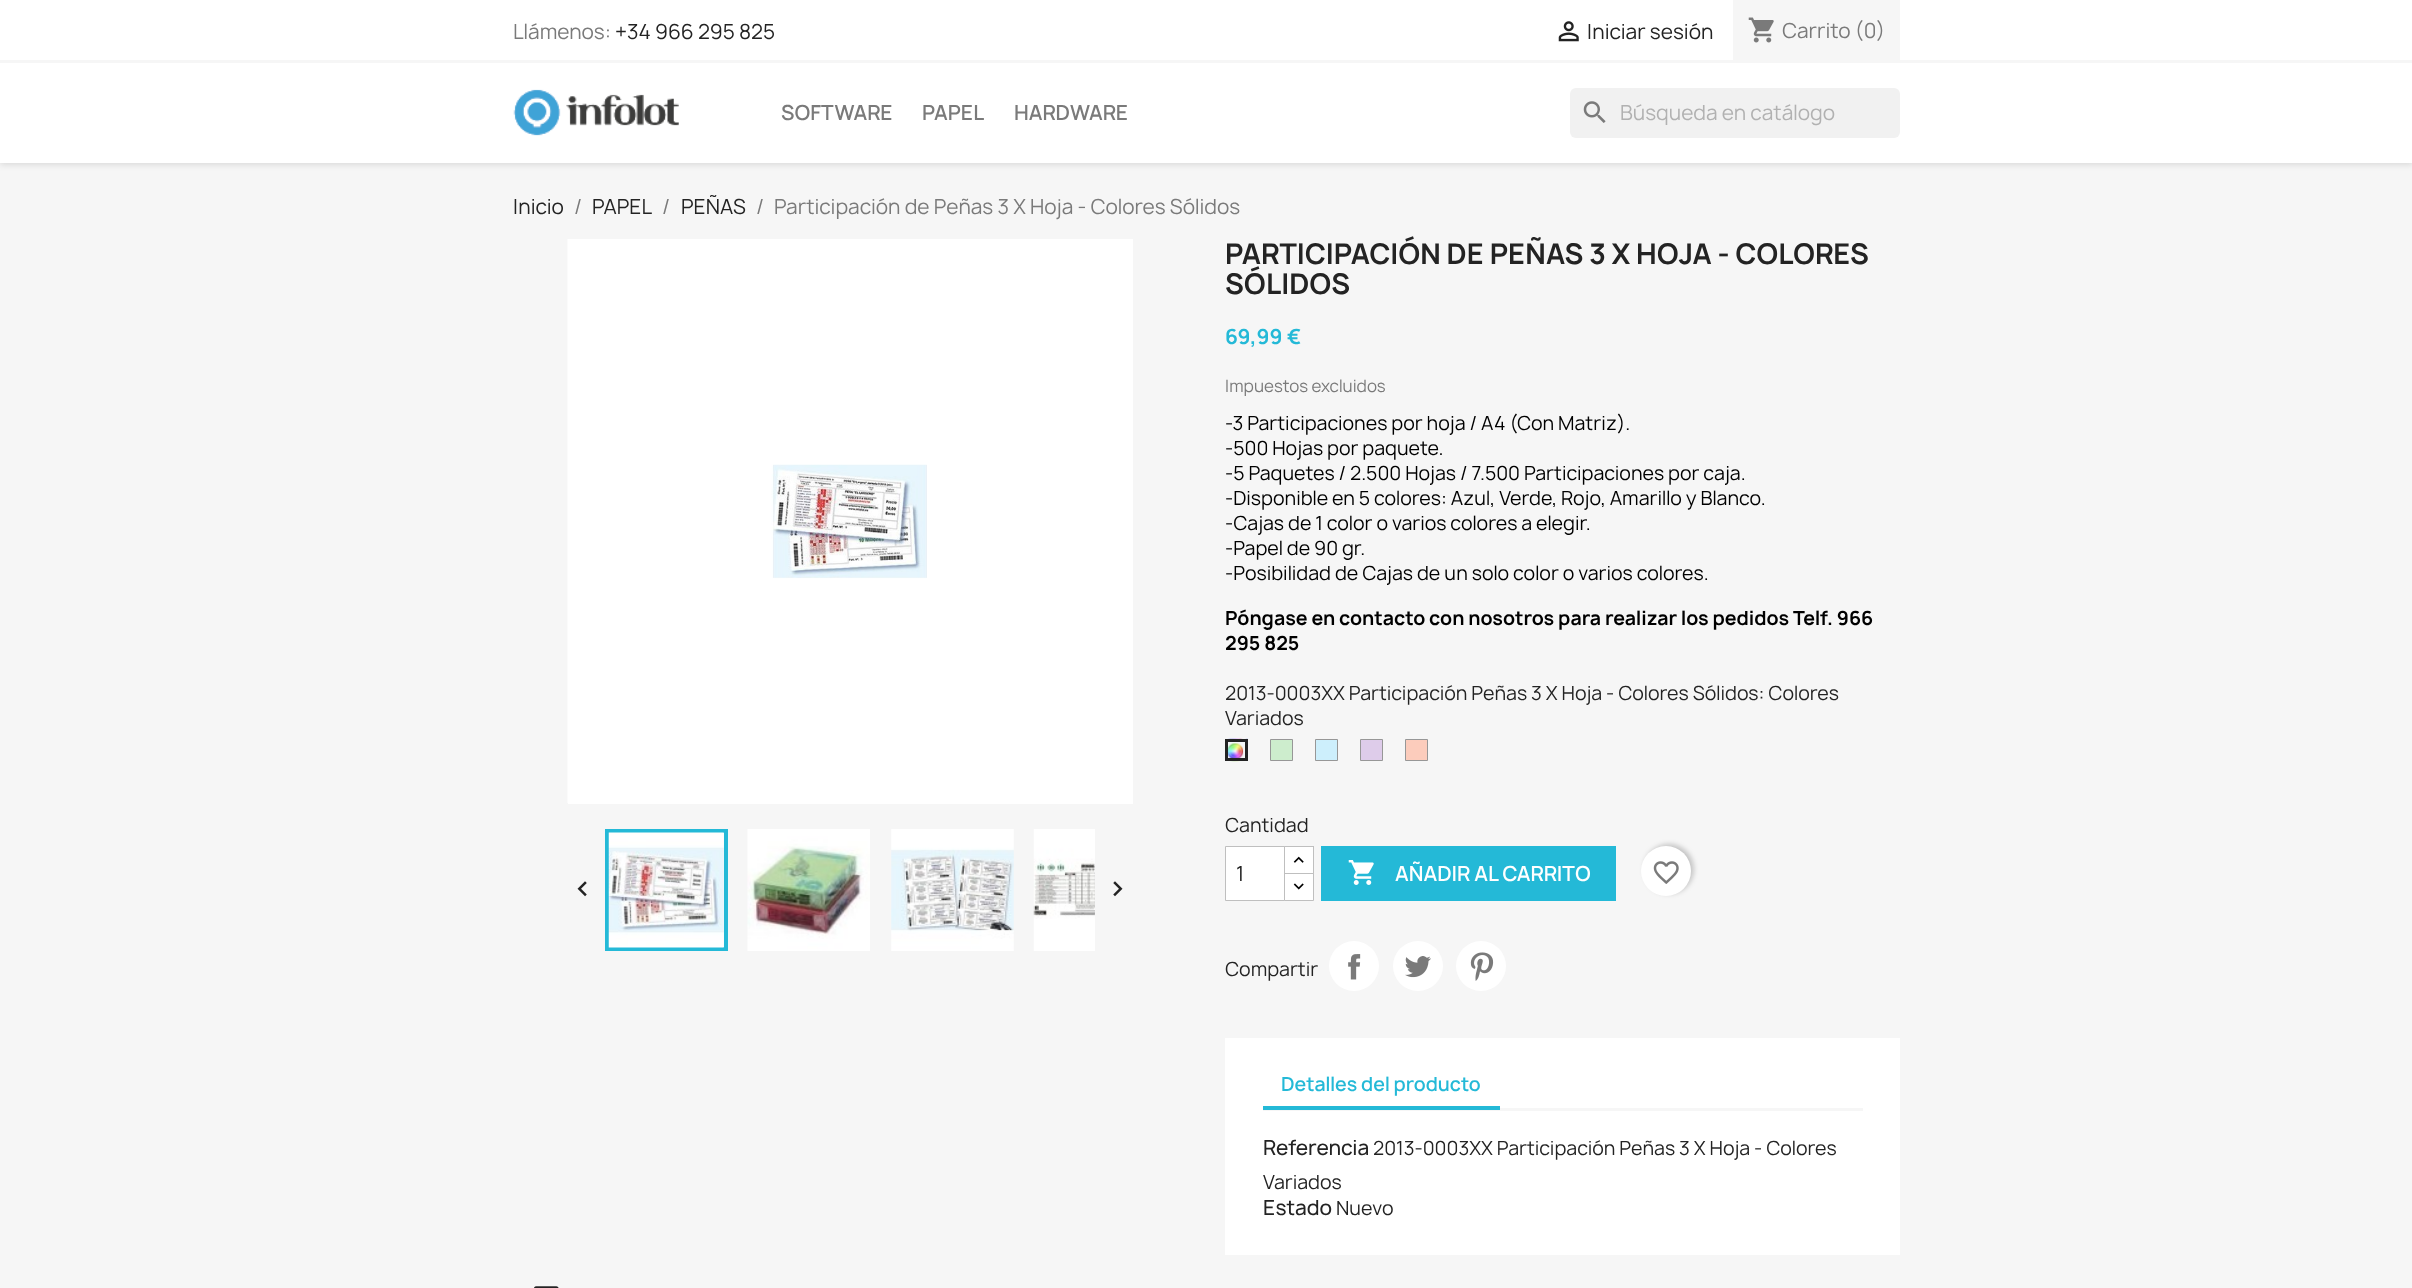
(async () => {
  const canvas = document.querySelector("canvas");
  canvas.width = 2412;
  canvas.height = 1288;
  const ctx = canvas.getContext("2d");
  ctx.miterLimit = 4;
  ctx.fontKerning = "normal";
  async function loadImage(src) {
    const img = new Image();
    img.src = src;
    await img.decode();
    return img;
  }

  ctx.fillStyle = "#f6f6f6";
  ctx.fillRect(0, 0, 2412, 1288);
  ctx.fillStyle = "rgba(0, 0, 0, 0.11)";
  ctx.filter = "blur(3px)";
  ctx.beginPath();
  ctx.rect(0, 3, 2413, 162);
  ctx.fill();
  ctx.filter = "none";
  ctx.fillStyle = "#ffffff";
  ctx.fillRect(0, 0, 2412, 163);
  ctx.fillStyle = "#f6f6f6";
  ctx.fillRect(0, 60, 2412, 3);
  ctx.drawImage(await loadImage("img/1.png"), 1558, 21, 21, 21);
  ctx.fillRect(1733, 0, 167, 60);
  ctx.drawImage(await loadImage("img/2.png"), 1748, 17, 26, 26);
  ctx.drawImage(await loadImage("img/3.png"), 513, 89, 166, 47);
  ctx.fillStyle = "#f1f1f1";
  ctx.beginPath();
  ctx.roundRect(1570, 88, 330, 50, 6);
  ctx.fill();
  ctx.drawImage(await loadImage("img/4.png"), 1583, 101, 23, 22);
  ctx.fillStyle = "#ffffff";
  ctx.fillRect(568, 239, 565, 565);
  ctx.drawImage(await loadImage("img/5.png"), 567, 239, 360, 564);
  ctx.strokeStyle = "#24b9d7";
  ctx.lineWidth = 4;
  ctx.strokeRect(607, 831, 119, 118);
  ctx.drawImage(await loadImage("img/6.png"), 747, 829, 123, 122);
  ctx.drawImage(await loadImage("img/7.png"), 891, 829, 123, 122);
  ctx.drawImage(await loadImage("img/8.png"), 1033, 829, 62, 122);
  ctx.drawImage(await loadImage("img/9.png"), 608, 832, 116, 116);
  ctx.drawImage(await loadImage("img/10.png"), 577, 881, 10, 16);
  ctx.drawImage(await loadImage("img/11.png"), 1113, 881, 10, 16);
  ctx.drawImage(await loadImage("img/12.png"), 1225, 738, 23, 24);
  ctx.strokeStyle = "#232323";
  ctx.lineWidth = 3;
  ctx.strokeRect(1226.5, 740.5, 20, 19);
  ctx.fillStyle = "#cdedcd";
  ctx.beginPath();
  ctx.rect(1270.5, 739.5, 22, 21);
  ctx.fill();
  ctx.strokeStyle = "#979797";
  ctx.lineWidth = 1;
  ctx.stroke();
  ctx.fillStyle = "#cdeffc";
  ctx.beginPath();
  ctx.rect(1315.5, 739.5, 22, 21);
  ctx.fill();
  ctx.stroke();
  ctx.fillStyle = "#deccea";
  ctx.beginPath();
  ctx.rect(1360.5, 739.5, 22, 21);
  ctx.fill();
  ctx.stroke();
  ctx.fillStyle = "#fcccbc";
  ctx.beginPath();
  ctx.rect(1405.5, 739.5, 22, 21);
  ctx.fill();
  ctx.stroke();
  ctx.fillStyle = "#ffffff";
  ctx.fillRect(1285, 847, 28, 26);
  ctx.strokeStyle = "#bfbfbf";
  ctx.strokeRect(1284.5, 846.5, 29, 28);
  ctx.beginPath();
  ctx.rect(1284.5, 873.5, 29, 27);
  ctx.fill();
  ctx.stroke();
  ctx.beginPath();
  ctx.rect(1225.5, 846.5, 59, 54);
  ctx.fill();
  ctx.stroke();
  ctx.drawImage(await loadImage("img/13.png"), 1293, 856, 11, 7);
  ctx.drawImage(await loadImage("img/14.png"), 1293, 883, 11, 7);
  ctx.fillStyle = "#24b9d7";
  ctx.fillRect(1321, 846, 295, 55);
  ctx.drawImage(await loadImage("img/15.png"), 1348, 860, 26, 25);
  ctx.fillStyle = "rgba(0, 0, 0, 0.2)";
  ctx.filter = "blur(2.5px)";
  ctx.beginPath();
  ctx.roundRect(1644, 844, 50, 50, 25);
  ctx.fill();
  ctx.filter = "none";
  ctx.fillStyle = "#ffffff";
  ctx.beginPath();
  ctx.arc(1666, 871, 25, 0, Math.PI * 2);
  ctx.fill();
  ctx.drawImage(await loadImage("img/16.png"), 1653, 861, 26, 23);
  ctx.beginPath();
  ctx.arc(1354, 966, 25, 0, Math.PI * 2);
  ctx.fill();
  ctx.drawImage(await loadImage("img/17.png"), 1348, 954, 13, 26);
  ctx.beginPath();
  ctx.arc(1418, 966, 25, 0, Math.PI * 2);
  ctx.fill();
  ctx.drawImage(await loadImage("img/18.png"), 1405, 956, 26, 22);
  ctx.beginPath();
  ctx.arc(1481, 966, 25, 0, Math.PI * 2);
  ctx.fill();
  ctx.drawImage(await loadImage("img/19.png"), 1470, 952, 24, 29);
  for (const [x, y, w, h, color] of [
    [1225, 1038, 675, 217, "#ffffff"],
    [1263, 1108, 600, 3, "#f6f6f6"],
    [1263, 1106, 237, 4, "#24b9d7"],
  ]) {
    ctx.fillStyle = color;
    ctx.fillRect(x, y, w, h);
  }
  ctx.drawImage(await loadImage("img/20.png"), 534, 1286, 25, 2);
  ctx.font = "20px Manrope";
  ctx.fillStyle = "#7a7a7a";
  ctx.fillText("Llámenos:", 513, 39);
  ctx.fillStyle = "#232323";
  ctx.fillText("+34 966 295 825", 615, 39);
  ctx.fillText("Iniciar sesión", 1587, 39);
  ctx.fillStyle = "#7a7a7a";
  ctx.fillText("Carrito (0)", 1782, 38);
  ctx.font = "600 20px Manrope";
  for (const [text, x, y] of [
    ["SOFTWARE", 781, 120],
    ["PAPEL", 922, 120],
    ["HARDWARE", 1014, 120],
  ]) {
    ctx.fillText(text, x, y);
  }
  ctx.font = "20px Manrope";
  ctx.fillStyle = "#b1b1b1";
  ctx.fillText("Búsqueda en catálogo", 1620, 120);
  ctx.fillStyle = "#232323";
  ctx.fillText("Inicio", 513, 214);
  ctx.fillStyle = "#7a7a7a";
  ctx.fillText("/", 574, 214);
  ctx.fillStyle = "#232323";
  ctx.fillText("PAPEL", 592, 214);
  ctx.fillStyle = "#7a7a7a";
  ctx.fillText("/", 662, 214);
  ctx.fillStyle = "#232323";
  ctx.fillText("PEÑAS", 681, 214);
  ctx.fillStyle = "#7a7a7a";
  ctx.fillText("/", 756, 214);
  ctx.fillText("Participación de Peñas 3 X Hoja - Colores Sólidos", 774, 214);
  ctx.font = "bold 27.5px Manrope";
  ctx.fillStyle = "#232323";
  ctx.fillText("PARTICIPACIÓN DE PEÑAS 3 X HOJA - COLORES", 1225, 264);
  ctx.fillText("SÓLIDOS", 1225, 294);
  ctx.font = "bold 20px Manrope";
  ctx.fillStyle = "#24b9d7";
  ctx.fillText("69,99 €", 1225, 344);
  ctx.font = "16.25px Manrope";
  ctx.fillStyle = "#7a7a7a";
  ctx.fillText("Impuestos excluidos", 1225, 392);
  ctx.font = "18.75px Manrope";
  ctx.fillStyle = "#000000";
  for (const [text, x, y] of [
    ["-3 Participaciones por hoja / A4 (Con Matriz).", 1225, 430],
    ["-500 Hojas por paquete.", 1225, 455],
    ["-5 Paquetes / 2.500 Hojas / 7.500 Participaciones por caja.", 1225, 480],
    ["-Disponible en 5 colores: Azul, Verde, Rojo, Amarillo y Blanco.", 1225, 505],
    ["-Cajas de 1 color o varios colores a elegir.", 1225, 530],
    ["-Papel de 90 gr.", 1225, 555],
    ["-Posibilidad de Cajas de un solo color o varios colores.", 1225, 580],
  ]) {
    ctx.fillText(text, x, y);
  }
  ctx.font = "bold 18.75px Manrope";
  ctx.fillText("Póngase en contacto con nosotros para realizar los pedidos Telf. 966", 1225, 625);
  ctx.fillText("295 825", 1225, 650);
  ctx.font = "18.75px Manrope";
  ctx.fillStyle = "#232323";
  for (const [text, x, y] of [
    ["2013-0003XX Participación Peñas 3 X Hoja - Colores Sólidos: Colores", 1225, 700],
    ["Variados", 1225, 725],
    ["Cantidad", 1225, 832],
  ]) {
    ctx.fillText(text, x, y);
  }
  ctx.font = "20px Manrope";
  ctx.fillText("1", 1236, 881);
  ctx.font = "600 20px Manrope";
  ctx.fillStyle = "#ffffff";
  ctx.fillText("AÑADIR AL CARRITO", 1395, 881);
  ctx.font = "18.75px Manrope";
  ctx.fillStyle = "#232323";
  ctx.fillText("Compartir", 1225, 976);
  ctx.font = "600 18.75px Manrope";
  ctx.fillStyle = "#24b9d7";
  ctx.fillText("Detalles del producto", 1281, 1091);
  ctx.font = "500 20px Manrope";
  ctx.fillStyle = "#232323";
  ctx.fillText("Referencia", 1263, 1155);
  ctx.font = "18.75px Manrope";
  ctx.fillText("2013-0003XX Participación Peñas 3 X Hoja - Colores", 1373, 1155);
  ctx.fillText("Variados", 1263, 1189);
  ctx.font = "500 20px Manrope";
  ctx.fillText("Estado", 1263, 1215);
  ctx.font = "18.75px Manrope";
  ctx.fillText("Nuevo", 1336, 1215);
})();
